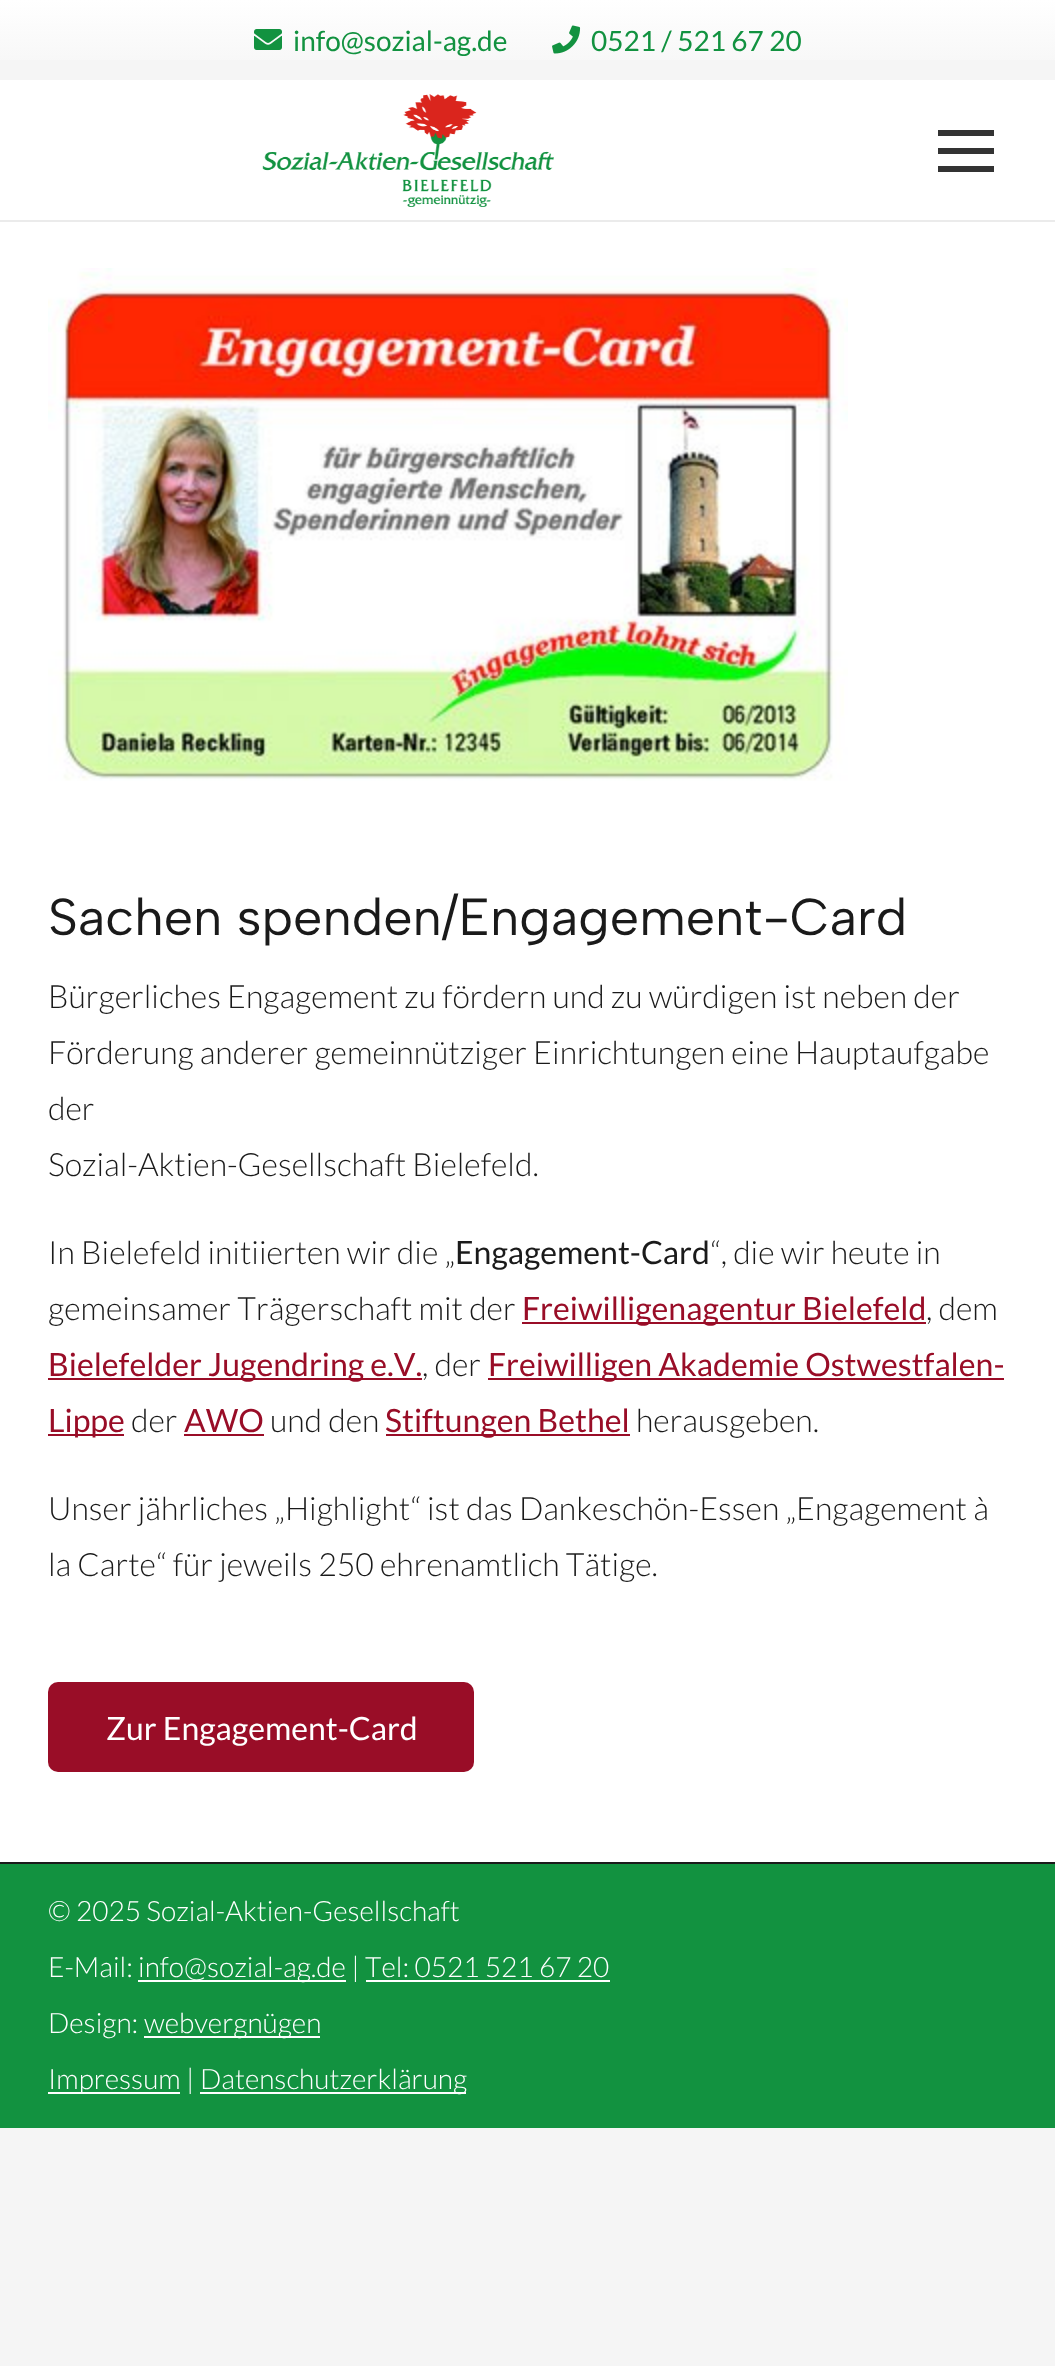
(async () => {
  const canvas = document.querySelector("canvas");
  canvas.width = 1055;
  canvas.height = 2366;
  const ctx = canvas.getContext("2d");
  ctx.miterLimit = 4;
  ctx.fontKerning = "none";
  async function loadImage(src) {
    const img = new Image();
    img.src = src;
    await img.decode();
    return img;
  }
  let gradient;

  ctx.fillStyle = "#f5f5f5";
  ctx.fillRect(0, 0, 1055, 2366);
  ctx.fillStyle = "#ffffff";
  ctx.fillRect(0, 80, 1055, 1782);
  gradient = ctx.createLinearGradient(528, 80, 528, 0);
  gradient.addColorStop(0, "#f5f5f5");
  gradient.addColorStop(1, "#ffffff");
  ctx.fillStyle = gradient;
  ctx.fillRect(0, 0, 1055, 60);
  ctx.drawImage(await loadImage("img/1.png"), 254, 29, 28, 21);
  ctx.drawImage(await loadImage("img/2.png"), 552, 25, 29, 29);
  ctx.fillStyle = "#ebebeb";
  ctx.fillRect(0, 220, 1055, 2);
  ctx.drawImage(await loadImage("img/3.png"), 262, 94, 292, 113);
  for (const [x, y, w, h, color] of [
    [938, 148, 56, 6, "#333333"],
    [938, 130, 56, 6, "#333333"],
    [938, 166, 56, 6, "#333333"],
  ]) {
    ctx.fillStyle = color;
    ctx.fillRect(x, y, w, h);
  }
  ctx.drawImage(await loadImage("img/4.png"), 48, 268, 800, 513);
  for (const [x, y, w, h, color] of [
    [522, 1322, 404, 2, "#990d27"],
    [48, 1378, 374, 2, "#990d27"],
    [488, 1378, 516, 2, "#990d27"],
    [48, 1434, 76, 2, "#990d27"],
    [184, 1434, 80, 2, "#990d27"],
    [386, 1434, 244, 2, "#990d27"],
  ]) {
    ctx.fillStyle = color;
    ctx.fillRect(x, y, w, h);
  }
  ctx.beginPath();
  ctx.roundRect(48, 1682, 426, 90, 10);
  ctx.fill();
  for (const [x, y, w, h, color] of [
    [0, 1862, 1055, 2, "#1a1a1a"],
    [0, 1864, 1055, 264, "#129240"],
    [138, 1980, 208, 2, "#ffffff"],
    [366, 1980, 244, 2, "#ffffff"],
    [144, 2036, 176, 2, "#ffffff"],
    [48, 2092, 132, 2, "#ffffff"],
    [200, 2092, 266, 2, "#ffffff"],
  ]) {
    ctx.fillStyle = color;
    ctx.fillRect(x, y, w, h);
  }
  ctx.font = "28px Lato";
  ctx.fillStyle = "#129240";
  ctx.fillText("info@sozial-ag.de", 293, 51);
  ctx.fillText("0521 / 521 67 20", 591, 51);
  ctx.font = "52px Albert Sans";
  ctx.fillStyle = "#1a1a1a";
  ctx.fillText("Sachen spenden/Engagement-Card", 48, 935);
  ctx.font = "300 32px Lato";
  for (const [text, x, y] of [
    ["Bürgerliches Engagement zu fördern und zu würdigen ist neben der", 48, 1008],
    ["Förderung anderer gemeinnütziger Einrichtungen eine Hauptaufgabe", 48, 1064],
    ["der", 48, 1120],
    ["Sozial-Aktien-Gesellschaft Bielefeld.", 48, 1176],
    ["In Bielefeld initiierten wir die „", 48, 1264],
  ]) {
    ctx.fillText(text, x, y);
  }
  ctx.font = "32px Lato";
  ctx.fillText("Engagement-Card", 455, 1264);
  ctx.font = "300 32px Lato";
  ctx.fillText("“, die wir heute in", 710, 1264);
  ctx.fillText("gemeinsamer Trägerschaft mit der", 48, 1320);
  ctx.font = "32px Lato";
  ctx.fillStyle = "#990d27";
  ctx.fillText("Freiwilligenagentur Bielefeld", 522, 1320);
  ctx.font = "300 32px Lato";
  ctx.fillStyle = "#1a1a1a";
  ctx.fillText(", dem", 926, 1320);
  ctx.font = "32px Lato";
  ctx.fillStyle = "#990d27";
  ctx.fillText("Bielefelder Jugendring e.V.", 48, 1376);
  ctx.font = "300 32px Lato";
  ctx.fillStyle = "#1a1a1a";
  ctx.fillText(", der", 422, 1376);
  ctx.font = "32px Lato";
  ctx.fillStyle = "#990d27";
  ctx.fillText("Freiwilligen Akademie Ostwestfalen-", 488, 1376);
  ctx.fillText("Lippe", 48, 1432);
  ctx.font = "300 32px Lato";
  ctx.fillStyle = "#1a1a1a";
  ctx.fillText("der", 131, 1432);
  ctx.font = "32px Lato";
  ctx.fillStyle = "#990d27";
  ctx.fillText("AWO", 184, 1432);
  ctx.font = "300 32px Lato";
  ctx.fillStyle = "#1a1a1a";
  ctx.fillText("und den", 270, 1432);
  ctx.font = "32px Lato";
  ctx.fillStyle = "#990d27";
  ctx.fillText("Stiftungen Bethel", 385, 1432);
  ctx.font = "300 32px Lato";
  ctx.fillStyle = "#1a1a1a";
  for (const [text, x, y] of [
    ["herausgeben.", 636, 1432],
    ["Unser jährliches „Highlight“ ist das Dankeschön-Essen „Engagement à", 48, 1520],
    ["la Carte“ für jeweils 250 ehrenamtlich Tätige.", 48, 1576],
  ]) {
    ctx.fillText(text, x, y);
  }
  ctx.font = "32px Lato";
  ctx.fillStyle = "#ffffff";
  ctx.fillText("Zur Engagement-Card", 106, 1740);
  ctx.font = "300 28px Lato";
  for (const [text, x, y] of [
    ["© 2025 Sozial-Aktien-Gesellschaft", 48, 1921],
    ["E-Mail:", 48, 1977],
    ["info@sozial-ag.de | Tel: 0521 521 67 20", 138, 1977],
    ["Design:", 48, 2033],
    ["webvergnügen", 144, 2033],
    ["Impressum |", 48, 2089],
    ["Datenschutzerklärung", 200, 2089],
  ]) {
    ctx.fillText(text, x, y);
  }
})();
